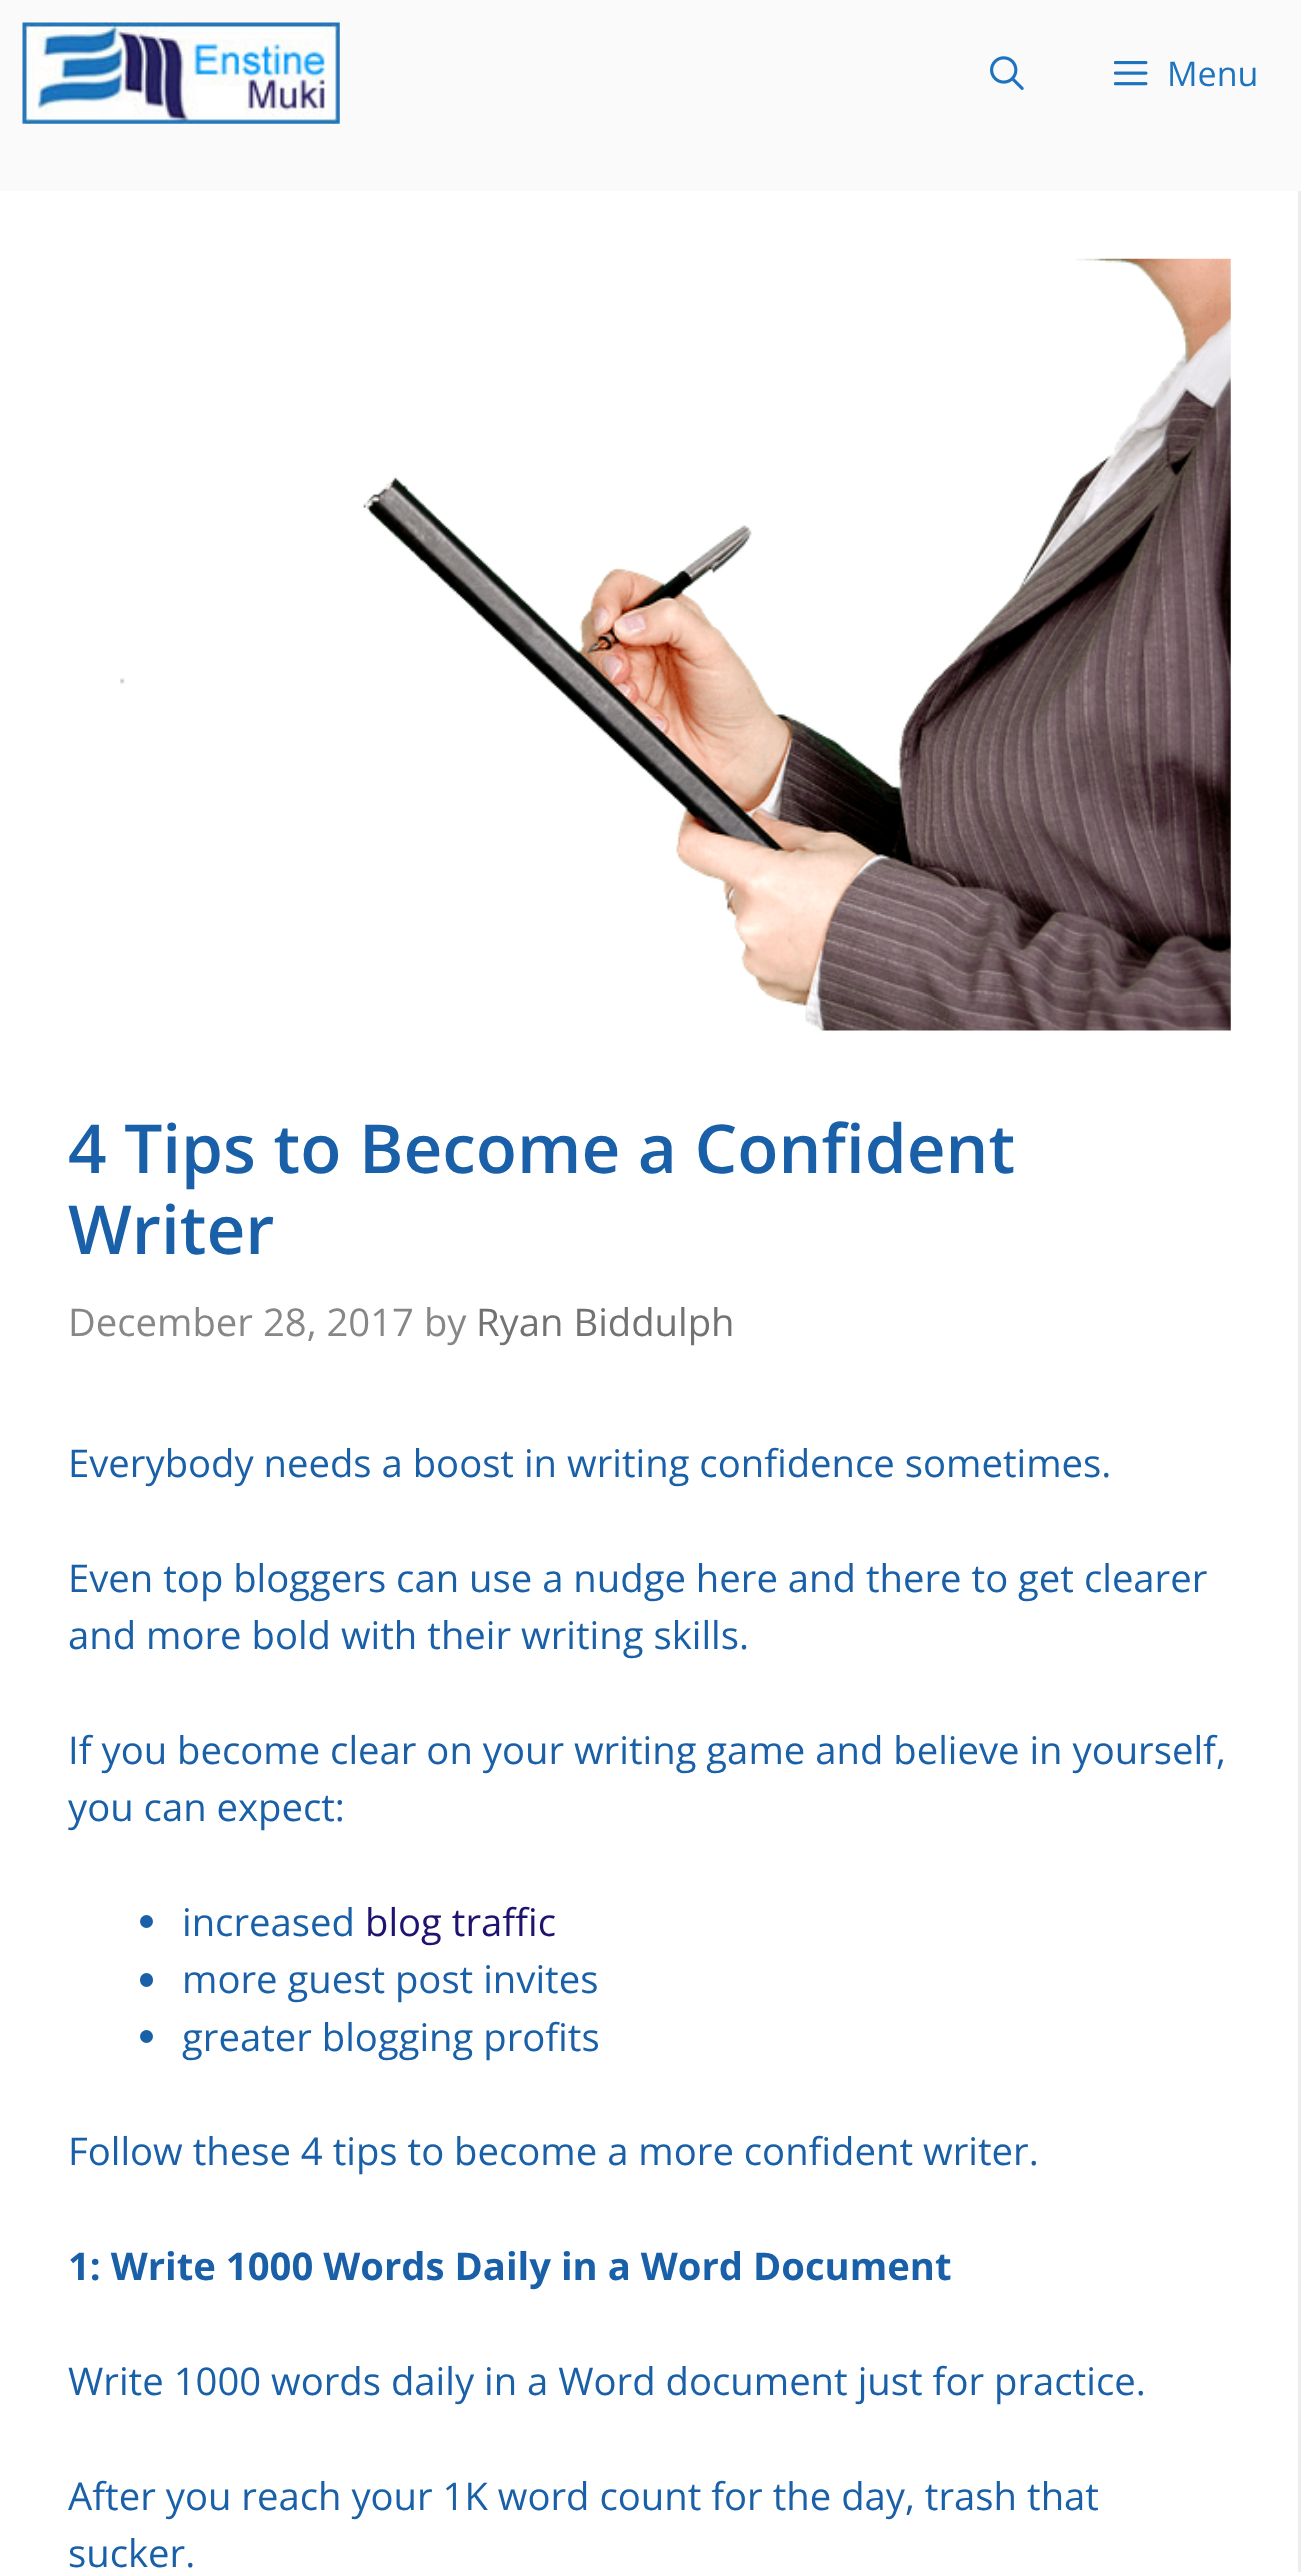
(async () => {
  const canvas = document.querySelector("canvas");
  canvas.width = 1301;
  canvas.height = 2572;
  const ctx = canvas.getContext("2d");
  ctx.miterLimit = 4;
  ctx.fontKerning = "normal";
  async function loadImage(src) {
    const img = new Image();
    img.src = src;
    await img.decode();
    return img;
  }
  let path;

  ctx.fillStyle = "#fafafa";
  ctx.fillRect(0, 0, 1301, 2572);
  ctx.drawImage(await loadImage("img/1.png"), 22, 22, 318, 102);
  ctx.drawImage(await loadImage("img/2.png"), 990, 56, 34, 34);
  ctx.drawImage(await loadImage("img/3.png"), 1114, 61, 34, 25);
  ctx.fillStyle = "#ffffff";
  ctx.fillRect(0, 191, 1298, 2381);
  ctx.fillStyle = "#ededed";
  path = new Path2D("M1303 191V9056L1298 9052V191Z");
  ctx.fill(path);
  ctx.drawImage(await loadImage("img/4.png"), 120, 258, 1111, 773);
  ctx.fillStyle = "#1960a8";
  ctx.beginPath();
  ctx.arc(146.5, 1921.5, 6.5, 0, Math.PI * 2);
  ctx.fill();
  ctx.beginPath();
  ctx.roundRect(140, 1973, 13, 14, 6.5);
  ctx.fill();
  ctx.beginPath();
  ctx.arc(146.5, 2036.5, 6.5, 0, Math.PI * 2);
  ctx.fill();
  ctx.font = "34px Open Sans";
  ctx.fillStyle = "#1e73be";
  ctx.fillText("Menu", 1167, 86);
  ctx.font = "600 67.5px Open Sans";
  ctx.fillStyle = "#1960a8";
  ctx.fillText("4 Tips to Become a Confident", 68, 1173);
  ctx.fillText("Writer", 68, 1254);
  ctx.font = "38.25px Open Sans";
  ctx.fillStyle = "#878787";
  ctx.fillText("December 28, 2017 by", 68, 1336);
  ctx.fillStyle = "#727272";
  ctx.fillText("Ryan Biddulph", 476, 1336);
  ctx.fillStyle = "#1960a8";
  for (const [text, x, y] of [
    ["Everybody needs a boost in writing confidence sometimes.", 68, 1477],
    ["Even top bloggers can use a nudge here and there to get clearer", 68, 1592],
    ["and more bold with their writing skills.", 68, 1649],
    ["If you become clear on your writing game and believe in yourself,", 68, 1764],
    ["you can expect:", 68, 1821],
    ["increased", 182, 1936],
  ]) {
    ctx.fillText(text, x, y);
  }
  ctx.fillStyle = "#1e1470";
  ctx.fillText("blog traffic", 365, 1936);
  ctx.fillStyle = "#1960a8";
  for (const [text, x, y] of [
    ["more guest post invites", 182, 1993],
    ["greater blogging profits", 182, 2051],
    ["Follow these 4 tips to become a more confident writer.", 68, 2165],
  ]) {
    ctx.fillText(text, x, y);
  }
  ctx.font = "bold 38.25px Open Sans";
  ctx.fillText("1: Write 1000 Words Daily in a Word Document", 68, 2280);
  ctx.font = "38.25px Open Sans";
  for (const [text, x, y] of [
    ["Write 1000 words daily in a Word document just for practice.", 68, 2395],
    ["After you reach your 1K word count for the day, trash that", 68, 2510],
    ["sucker.", 68, 2567],
  ]) {
    ctx.fillText(text, x, y);
  }
})();
